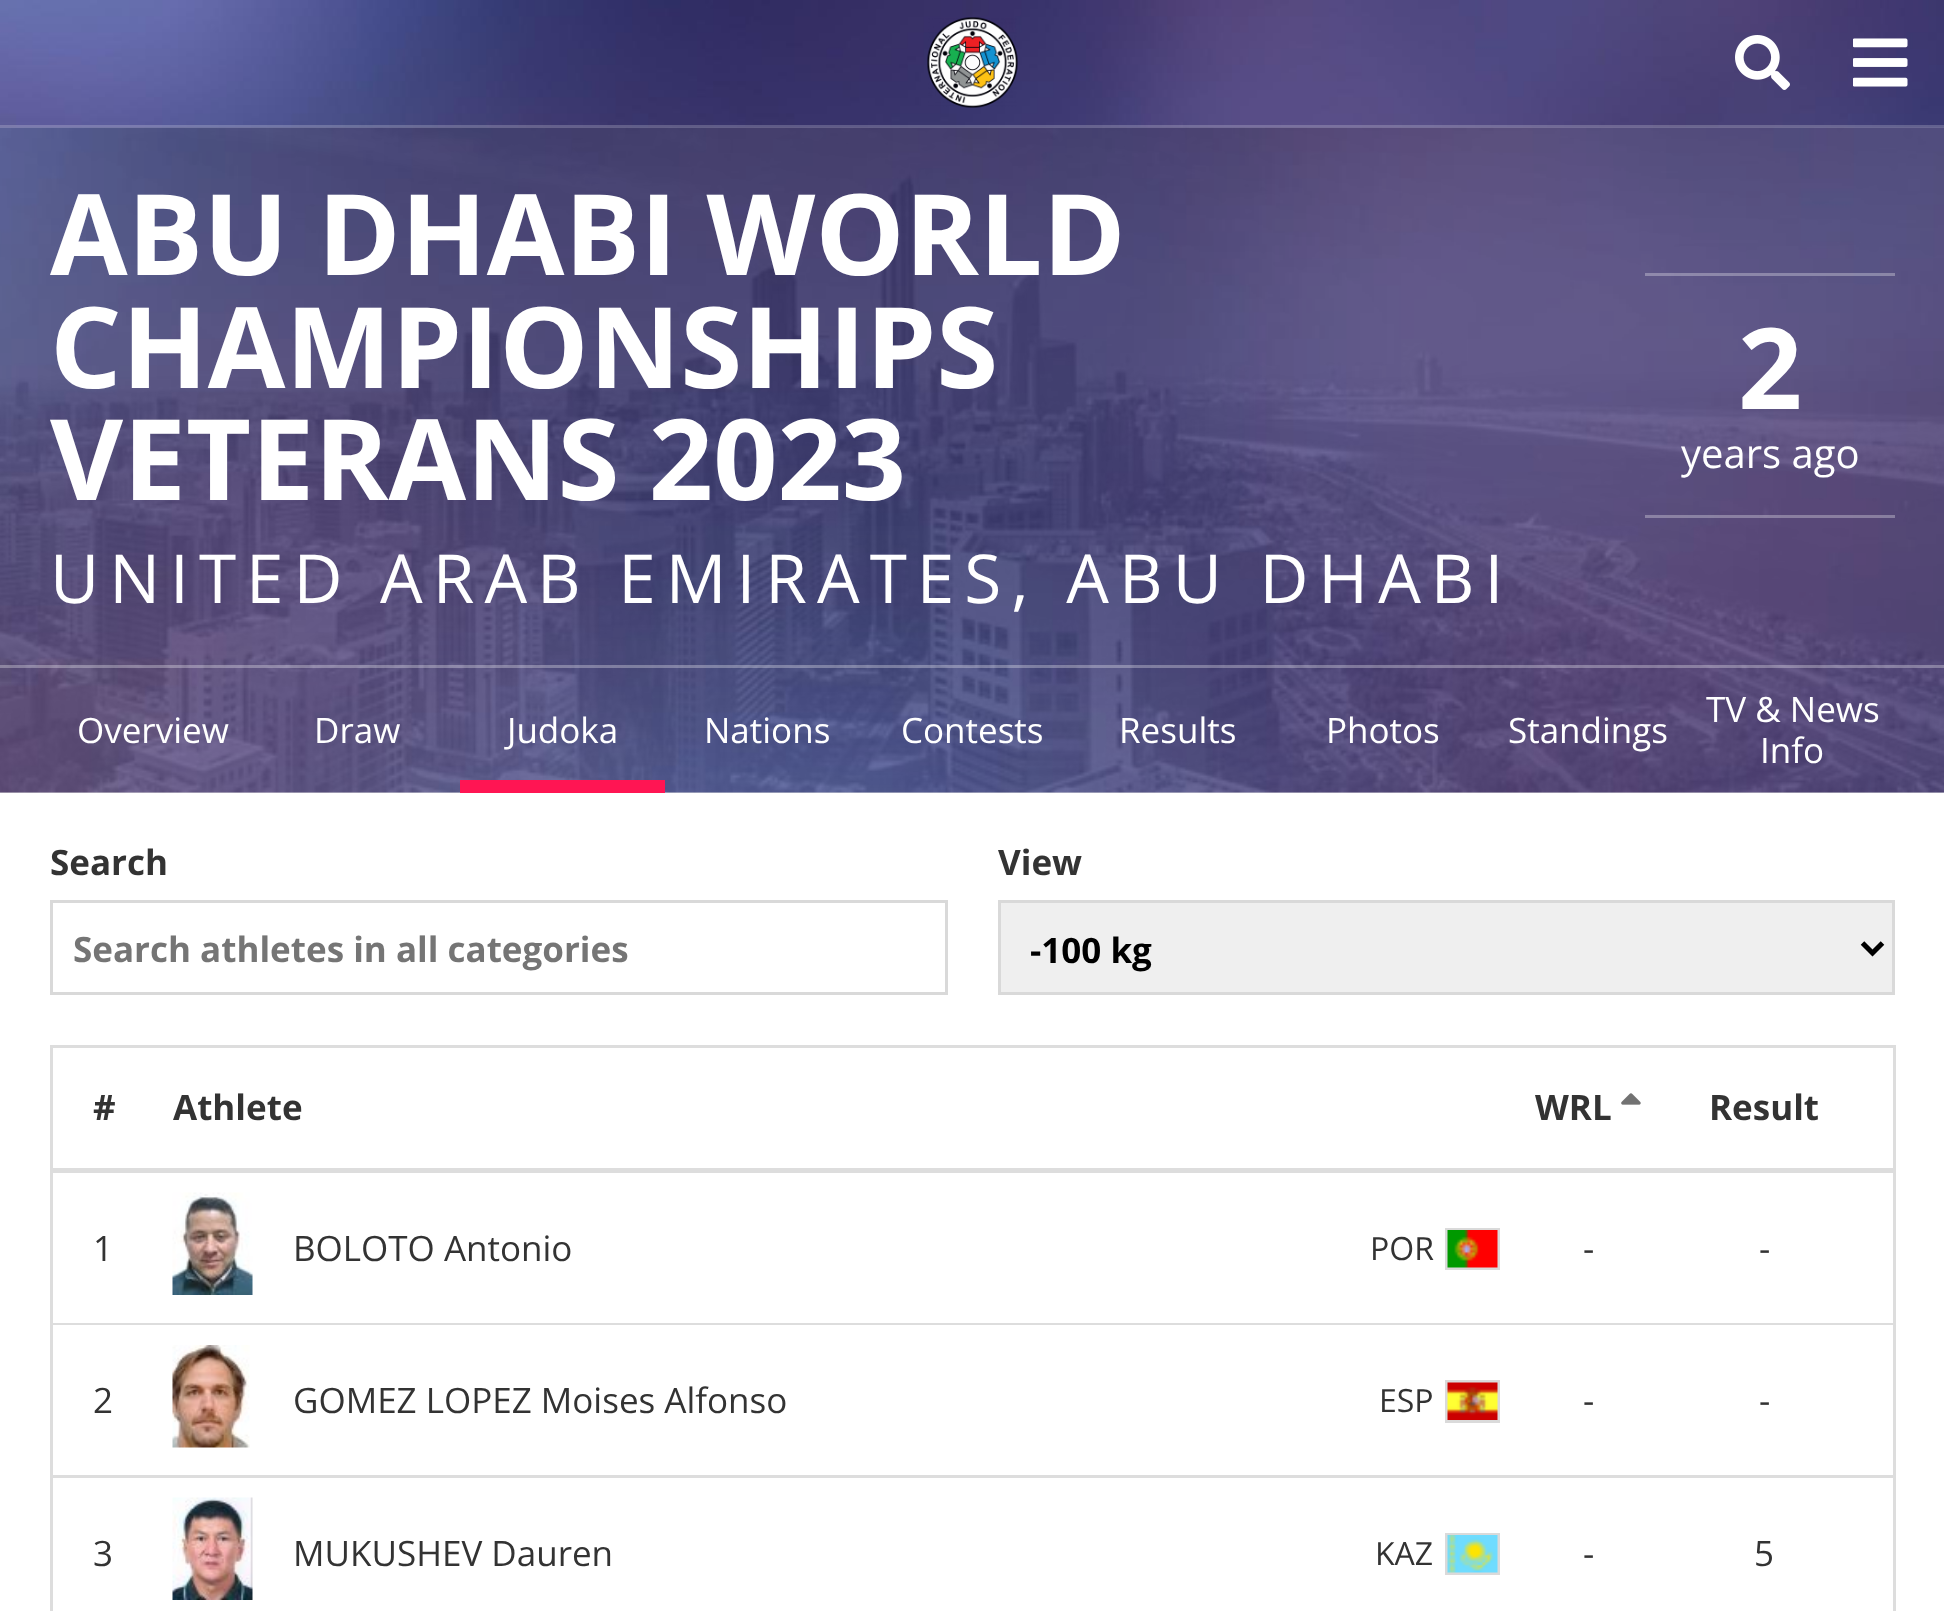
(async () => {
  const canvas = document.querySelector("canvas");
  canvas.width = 1944;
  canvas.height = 1611;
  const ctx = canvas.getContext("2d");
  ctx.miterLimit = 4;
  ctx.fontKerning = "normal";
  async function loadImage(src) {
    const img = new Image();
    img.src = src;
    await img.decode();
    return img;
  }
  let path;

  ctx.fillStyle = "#e2e2e2";
  ctx.fillRect(0, 0, 1944, 1611);
  ctx.drawImage(await loadImage("img/5.png"), 0, 127, 1944, 666);
  ctx.drawImage(await loadImage("img/6.png"), 0, 127, 1944, 666);
  ctx.drawImage(await loadImage("img/1.png"), 0, 0, 1944, 128);
  ctx.fillStyle = "rgba(255, 255, 255, 0.2)";
  ctx.fillRect(0, 125, 1944, 3);
  ctx.drawImage(await loadImage("img/2.png"), 927, 17, 91, 91);
  ctx.drawImage(await loadImage("img/3.png"), 1735, 35, 55, 55);
  ctx.drawImage(await loadImage("img/4.png"), 1853, 38, 55, 49);
  for (const [x, y, w, h, color] of [
    [1645, 273, 250, 3, "rgba(255, 255, 255, 0.3)"],
    [1645, 515, 250, 3, "rgba(255, 255, 255, 0.3)"],
    [0, 665, 1944, 3, "rgba(255, 255, 255, 0.3)"],
    [460, 780, 205, 13, "#ff1553"],
    [0, 793, 1944, 818, "#ffffff"],
  ]) {
    ctx.fillStyle = color;
    ctx.fillRect(x, y, w, h);
  }
  ctx.strokeStyle = "#d9d9d9";
  ctx.lineWidth = 3;
  ctx.strokeRect(51.5, 901.5, 895, 92);
  ctx.fillStyle = "#efefef";
  ctx.beginPath();
  ctx.rect(999.5, 901.5, 894, 92);
  ctx.fill();
  ctx.stroke();
  path = new Path2D("M1862.5 943L1872.5 953L1882.5 943");
  ctx.strokeStyle = "#000000";
  ctx.lineWidth = 5;
  ctx.stroke(path);
  for (const [x, y, w, h, color] of [
    [50, 1045, 1845, 3, "#dddddd"],
    [1893, 1045, 3, 566, "#dddddd"],
    [50, 1168, 1845, 5, "#dddddd"],
    [50, 1045, 3, 128, "#dddddd"],
  ]) {
    ctx.fillStyle = color;
    ctx.fillRect(x, y, w, h);
  }
  ctx.drawImage(await loadImage("img/7.png"), 1621, 1093, 20, 12);
  ctx.fillRect(50, 1323, 1845, 2);
  ctx.fillRect(50, 1173, 3, 152);
  ctx.drawImage(await loadImage("img/8.png"), 172, 1192, 81, 103);
  ctx.strokeStyle = "#dadada";
  ctx.lineWidth = 3;
  ctx.strokeRect(1446.5, 1229.5, 52, 39);
  ctx.drawImage(await loadImage("img/9.png"), 1447, 1230, 51, 38);
  ctx.fillRect(50, 1475, 1845, 3);
  ctx.fillRect(50, 1325, 3, 286);
  ctx.drawImage(await loadImage("img/10.png"), 172, 1345, 78, 103);
  ctx.strokeRect(1446.5, 1381.5, 52, 40);
  ctx.drawImage(await loadImage("img/11.png"), 1447, 1382, 51, 38);
  ctx.drawImage(await loadImage("img/12.png"), 172, 1497, 81, 103);
  ctx.strokeRect(1446.5, 1534.5, 52, 39);
  ctx.drawImage(await loadImage("img/13.png"), 1447, 1535, 51, 38);
  ctx.font = "bold 112.5px Open Sans";
  ctx.fillStyle = "#ffffff";
  for (const [text, x, y] of [
    ["ABU DHABI WORLD", 50, 275],
    ["CHAMPIONSHIPS", 50, 388],
    ["VETERANS 2023", 50, 500],
  ]) {
    ctx.fillText(text, x, y);
  }
  ctx.letterSpacing = "10px";
  ctx.font = "67.5px Open Sans";
  ctx.fillText("UNITED ARAB EMIRATES, ABU DHABI", 50, 603);
  ctx.letterSpacing = "0px";
  ctx.font = "bold 112.5px Open Sans";
  ctx.fillText("2", 1738, 409);
  ctx.font = "40px Open Sans";
  ctx.fillText("years ago", 1681, 468);
  ctx.font = "35px Open Sans";
  for (const [text, x, y] of [
    ["Overview", 77, 743],
    ["Draw", 314, 743],
    ["Judoka", 507, 743],
    ["Nations", 704, 743],
    ["Contests", 901, 743],
    ["Results", 1119, 743],
    ["Photos", 1326, 743],
    ["Standings", 1508, 743],
    ["TV & News", 1706, 722],
    ["Info", 1760, 763],
  ]) {
    ctx.fillText(text, x, y);
  }
  ctx.font = "bold 35px Open Sans";
  ctx.fillStyle = "#333333";
  ctx.fillText("Search", 50, 875);
  ctx.fillStyle = "#757575";
  ctx.fillText("Search athletes in all categories", 73, 962);
  ctx.fillStyle = "#333333";
  ctx.fillText("View", 998, 875);
  ctx.fillStyle = "#000000";
  ctx.fillText("-100 kg", 1030, 963);
  ctx.fillStyle = "#333333";
  for (const [text, x, y] of [
    ["#", 93, 1120],
    ["Athlete", 173, 1120],
    ["WRL", 1535, 1120],
    ["Result", 1709, 1120],
  ]) {
    ctx.fillText(text, x, y);
  }
  ctx.font = "35px Open Sans";
  ctx.fillText("1", 93, 1261);
  ctx.fillText("BOLOTO Antonio", 293, 1261);
  ctx.font = "32px Open Sans";
  ctx.fillText("POR", 1370, 1260);
  ctx.font = "35px Open Sans";
  for (const [text, x, y] of [
    ["-", 1583, 1261],
    ["-", 1759, 1261],
    ["2", 93, 1413],
    ["GOMEZ LOPEZ Moises Alfonso", 293, 1413],
  ]) {
    ctx.fillText(text, x, y);
  }
  ctx.font = "32px Open Sans";
  ctx.fillText("ESP", 1379, 1412);
  ctx.font = "35px Open Sans";
  for (const [text, x, y] of [
    ["-", 1583, 1413],
    ["-", 1759, 1413],
    ["3", 93, 1566],
    ["MUKUSHEV Dauren", 293, 1566],
  ]) {
    ctx.fillText(text, x, y);
  }
  ctx.font = "32px Open Sans";
  ctx.fillText("KAZ", 1375, 1565);
  ctx.font = "35px Open Sans";
  ctx.fillText("-", 1583, 1566);
  ctx.fillText("5", 1754, 1566);
})();
